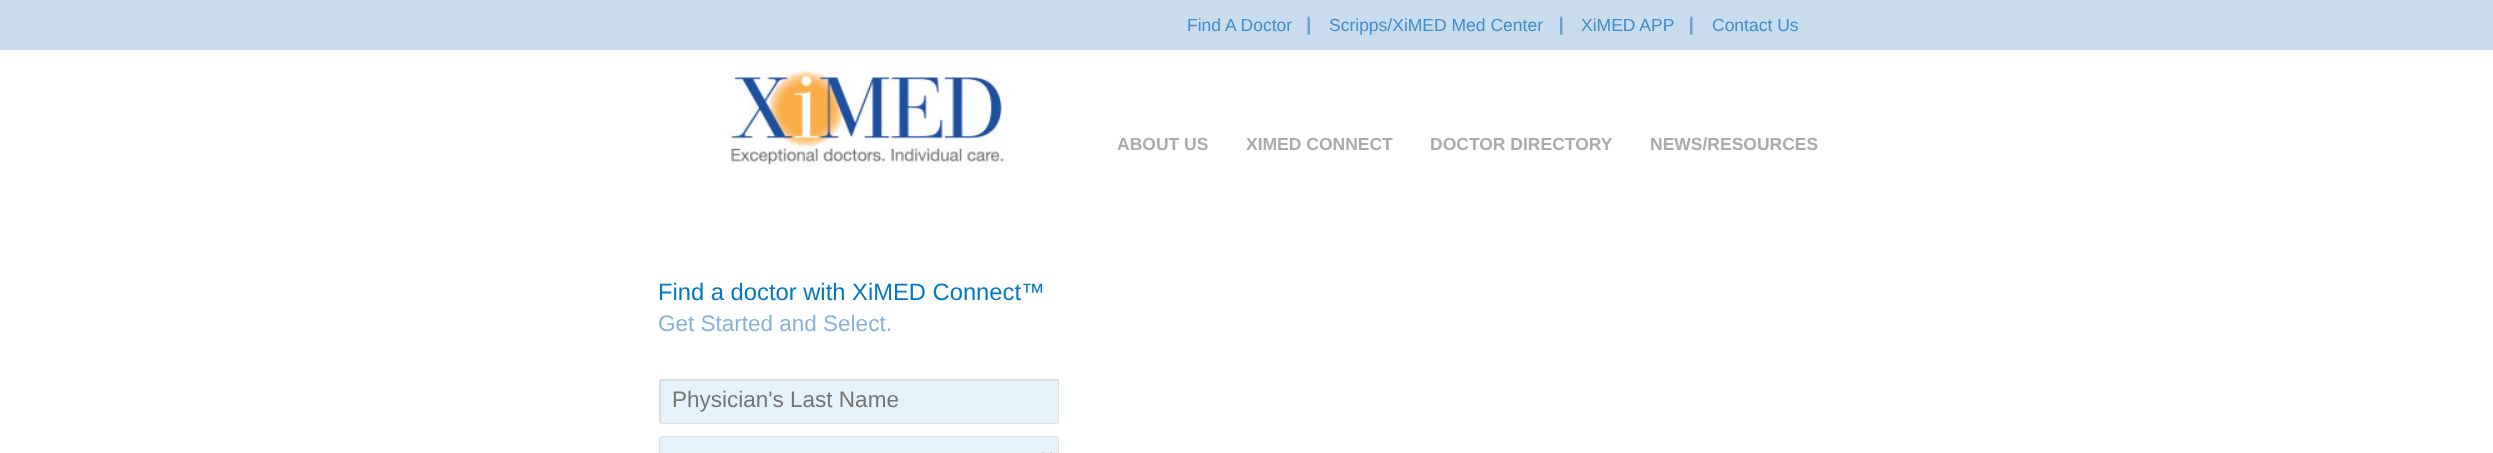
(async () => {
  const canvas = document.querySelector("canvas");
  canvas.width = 2493;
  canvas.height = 453;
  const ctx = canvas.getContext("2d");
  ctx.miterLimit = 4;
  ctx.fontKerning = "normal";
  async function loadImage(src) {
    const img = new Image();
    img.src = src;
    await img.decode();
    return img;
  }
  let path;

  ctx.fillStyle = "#ffffff";
  ctx.fillRect(0, 0, 2493, 453);
  ctx.fillStyle = "#c8dcee";
  ctx.fillRect(0, 0, 2493, 50);
  ctx.drawImage(await loadImage("img/1.png"), 1307, 16, 3, 19);
  ctx.drawImage(await loadImage("img/2.png"), 1560, 16, 3, 19);
  ctx.drawImage(await loadImage("img/2.png"), 1690, 16, 3, 19);
  ctx.drawImage(await loadImage("img/3.png"), 728, 67, 281, 101);
  ctx.fillStyle = "#e5f2fa";
  ctx.beginPath();
  ctx.roundRect(659, 379, 400, 45, 2.5);
  ctx.fill();
  ctx.fillStyle = "#dddddd";
  path = new Path2D("M662 381H1058L1057 380H661L660 381V422C660 423 661 423 661 423V382Z");
  ctx.fill(path);
  ctx.beginPath();
  ctx.roundRect(659.5, 379.5, 399, 44, 2);
  ctx.strokeStyle = "#dddddd";
  ctx.stroke();
  ctx.fillStyle = "#e5f2fa";
  ctx.beginPath();
  ctx.roundRect(659.5, 436.5, 399, 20, 2);
  ctx.fill();
  ctx.stroke();
  path = new Path2D("M1042 453L1047 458L1052 453");
  ctx.strokeStyle = "#aaaaaa";
  ctx.lineWidth = 2.5;
  ctx.stroke(path);
  ctx.font = "17.5px Liberation Sans";
  ctx.fillStyle = "#428bca";
  for (const [text, x, y] of [
    ["Find A Doctor", 1187, 31],
    ["Scripps/XiMED Med Center", 1329, 31],
    ["XiMED APP", 1581, 31],
    ["Contact Us", 1712, 31],
  ]) {
    ctx.fillText(text, x, y);
  }
  ctx.font = "bold 17.5px Liberation Sans";
  ctx.fillStyle = "#aaaaaa";
  for (const [text, x, y] of [
    ["ABOUT US", 1117, 150],
    ["XIMED CONNECT", 1246, 150],
    ["DOCTOR DIRECTORY", 1430, 150],
    ["NEWS/RESOURCES", 1650, 150],
  ]) {
    ctx.fillText(text, x, y);
  }
  ctx.font = "23.75px Liberation Sans";
  ctx.fillStyle = "#0079c2";
  ctx.fillText("Find a doctor with XiMED Connect™", 658, 300);
  ctx.font = "22.5px Liberation Sans";
  ctx.fillStyle = "#86b2da";
  ctx.fillText("Get Started and Select.", 658, 331);
  ctx.fillStyle = "#757575";
  ctx.fillText("Physician's Last Name", 672, 407);
})();
